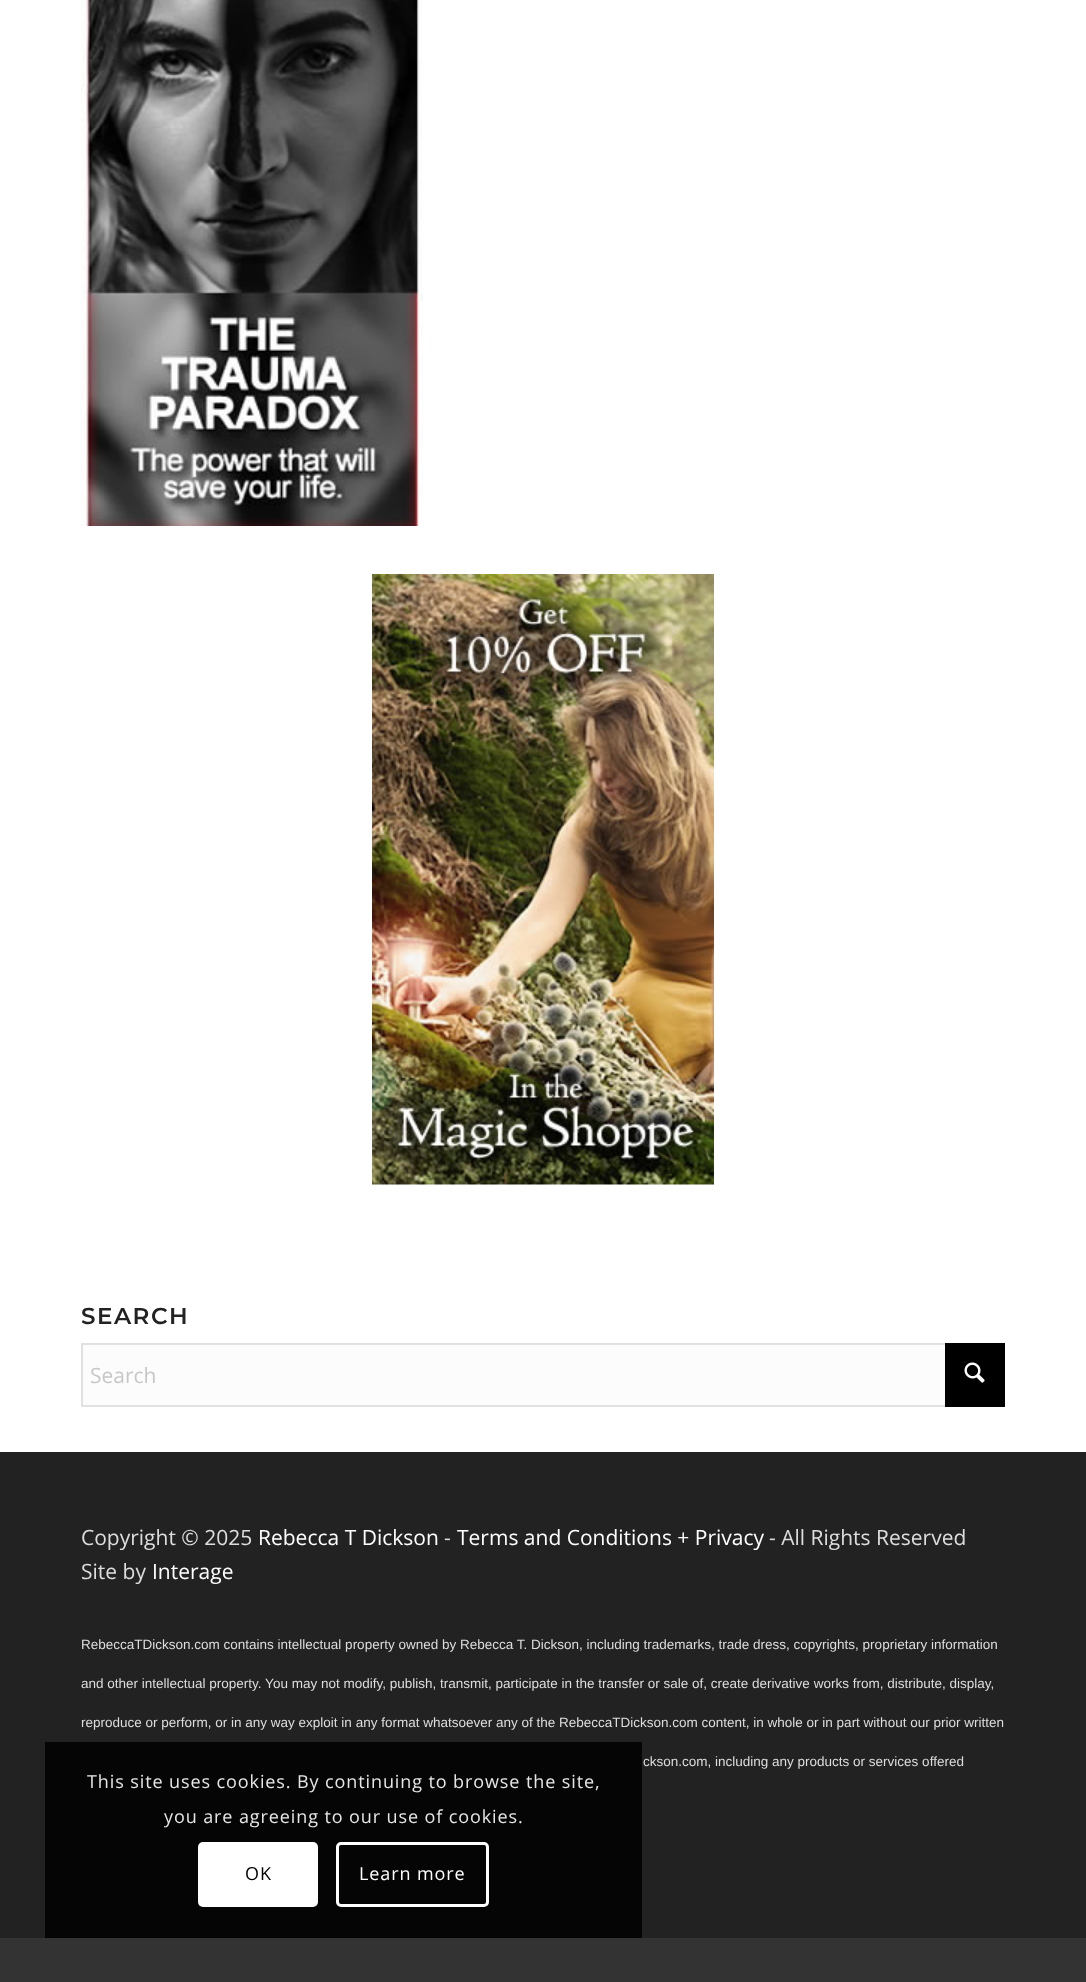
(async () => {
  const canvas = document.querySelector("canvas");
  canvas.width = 1086;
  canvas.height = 1982;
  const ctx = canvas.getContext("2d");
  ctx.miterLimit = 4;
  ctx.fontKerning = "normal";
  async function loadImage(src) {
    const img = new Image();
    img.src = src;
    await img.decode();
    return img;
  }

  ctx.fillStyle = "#ffffff";
  ctx.fillRect(0, 0, 1086, 1982);
  ctx.drawImage(await loadImage("img/1.png"), 81, 0, 342, 526);
  ctx.drawImage(await loadImage("img/2.png"), 372, 574, 342, 611);
  ctx.fillStyle = "#fcfcfc";
  ctx.fillRect(83, 1345, 862, 60);
  ctx.strokeStyle = "#e1e1e1";
  ctx.lineWidth = 2;
  ctx.strokeRect(82, 1344, 922, 62);
  ctx.fillStyle = "#000000";
  ctx.fillRect(945, 1343, 60, 64);
  ctx.drawImage(await loadImage("img/3.png"), 964, 1362, 21, 21);
  for (const [x, y, w, h, color] of [
    [0, 1452, 1086, 486, "#222222"],
    [0, 1938, 1086, 44, "#333333"],
    [45, 1742, 597, 196, "rgba(0, 0, 0, 0.85)"],
  ]) {
    ctx.fillStyle = color;
    ctx.fillRect(x, y, w, h);
  }
  ctx.fillStyle = "#ffffff";
  ctx.beginPath();
  ctx.roundRect(198, 1842, 120, 65, 5);
  ctx.fill();
  ctx.beginPath();
  ctx.roundRect(337.5, 1843.5, 150, 62, 3.5);
  ctx.strokeStyle = "#ffffff";
  ctx.lineWidth = 3;
  ctx.stroke();
  ctx.letterSpacing = "1.5px";
  ctx.font = "600 23px Montserrat";
  ctx.fillStyle = "#222222";
  ctx.fillText("SEARCH", 81, 1324);
  ctx.letterSpacing = "0px";
  ctx.font = "21px Open Sans";
  ctx.fillStyle = "#c7c7c7";
  ctx.fillText("Search", 90, 1383);
  ctx.fillStyle = "#dddddd";
  ctx.fillText("Copyright © 2025", 81, 1545);
  ctx.fillStyle = "#ffffff";
  ctx.fillText("Rebecca T Dickson", 258, 1545);
  ctx.fillStyle = "#dddddd";
  ctx.fillText("-", 444, 1545);
  ctx.fillStyle = "#ffffff";
  ctx.fillText("Terms and Conditions + Privacy", 457, 1545);
  ctx.fillStyle = "#dddddd";
  ctx.fillText("- All Rights Reserved", 769, 1545);
  ctx.fillText("Site by", 81, 1579);
  ctx.fillStyle = "#ffffff";
  ctx.fillText("Interage", 152, 1579);
  ctx.font = "13.5px Liberation Sans";
  ctx.fillStyle = "#dddddd";
  for (const [text, x, y] of [
    ["RebeccaTDickson.com contains intellectual property owned by Rebecca T. Dickson, including trademarks, trade dress, copyrights, proprietary information", 81, 1649],
    ["and other intellectual property. You may not modify, publish, transmit, participate in the transfer or sale of, create derivative works from, distribute, display,", 81, 1688],
    ["reproduce or perform, or in any way exploit in any format whatsoever any of the RebeccaTDickson.com content, in whole or in part without our prior written", 81, 1727],
    ["ckson.com, including any products or services offered", 643, 1766],
  ]) {
    ctx.fillText(text, x, y);
  }
  ctx.letterSpacing = "0.9px";
  ctx.font = "18px Open Sans";
  ctx.fillStyle = "#e6e6e6";
  ctx.fillText("This site uses cookies. By continuing to browse the site,", 87, 1788);
  ctx.fillText("you are agreeing to our use of cookies.", 164, 1823);
  ctx.fillStyle = "#000000";
  ctx.fillText("OK", 245, 1880);
  ctx.fillStyle = "#ffffff";
  ctx.fillText("Learn more", 359, 1880);
})();
